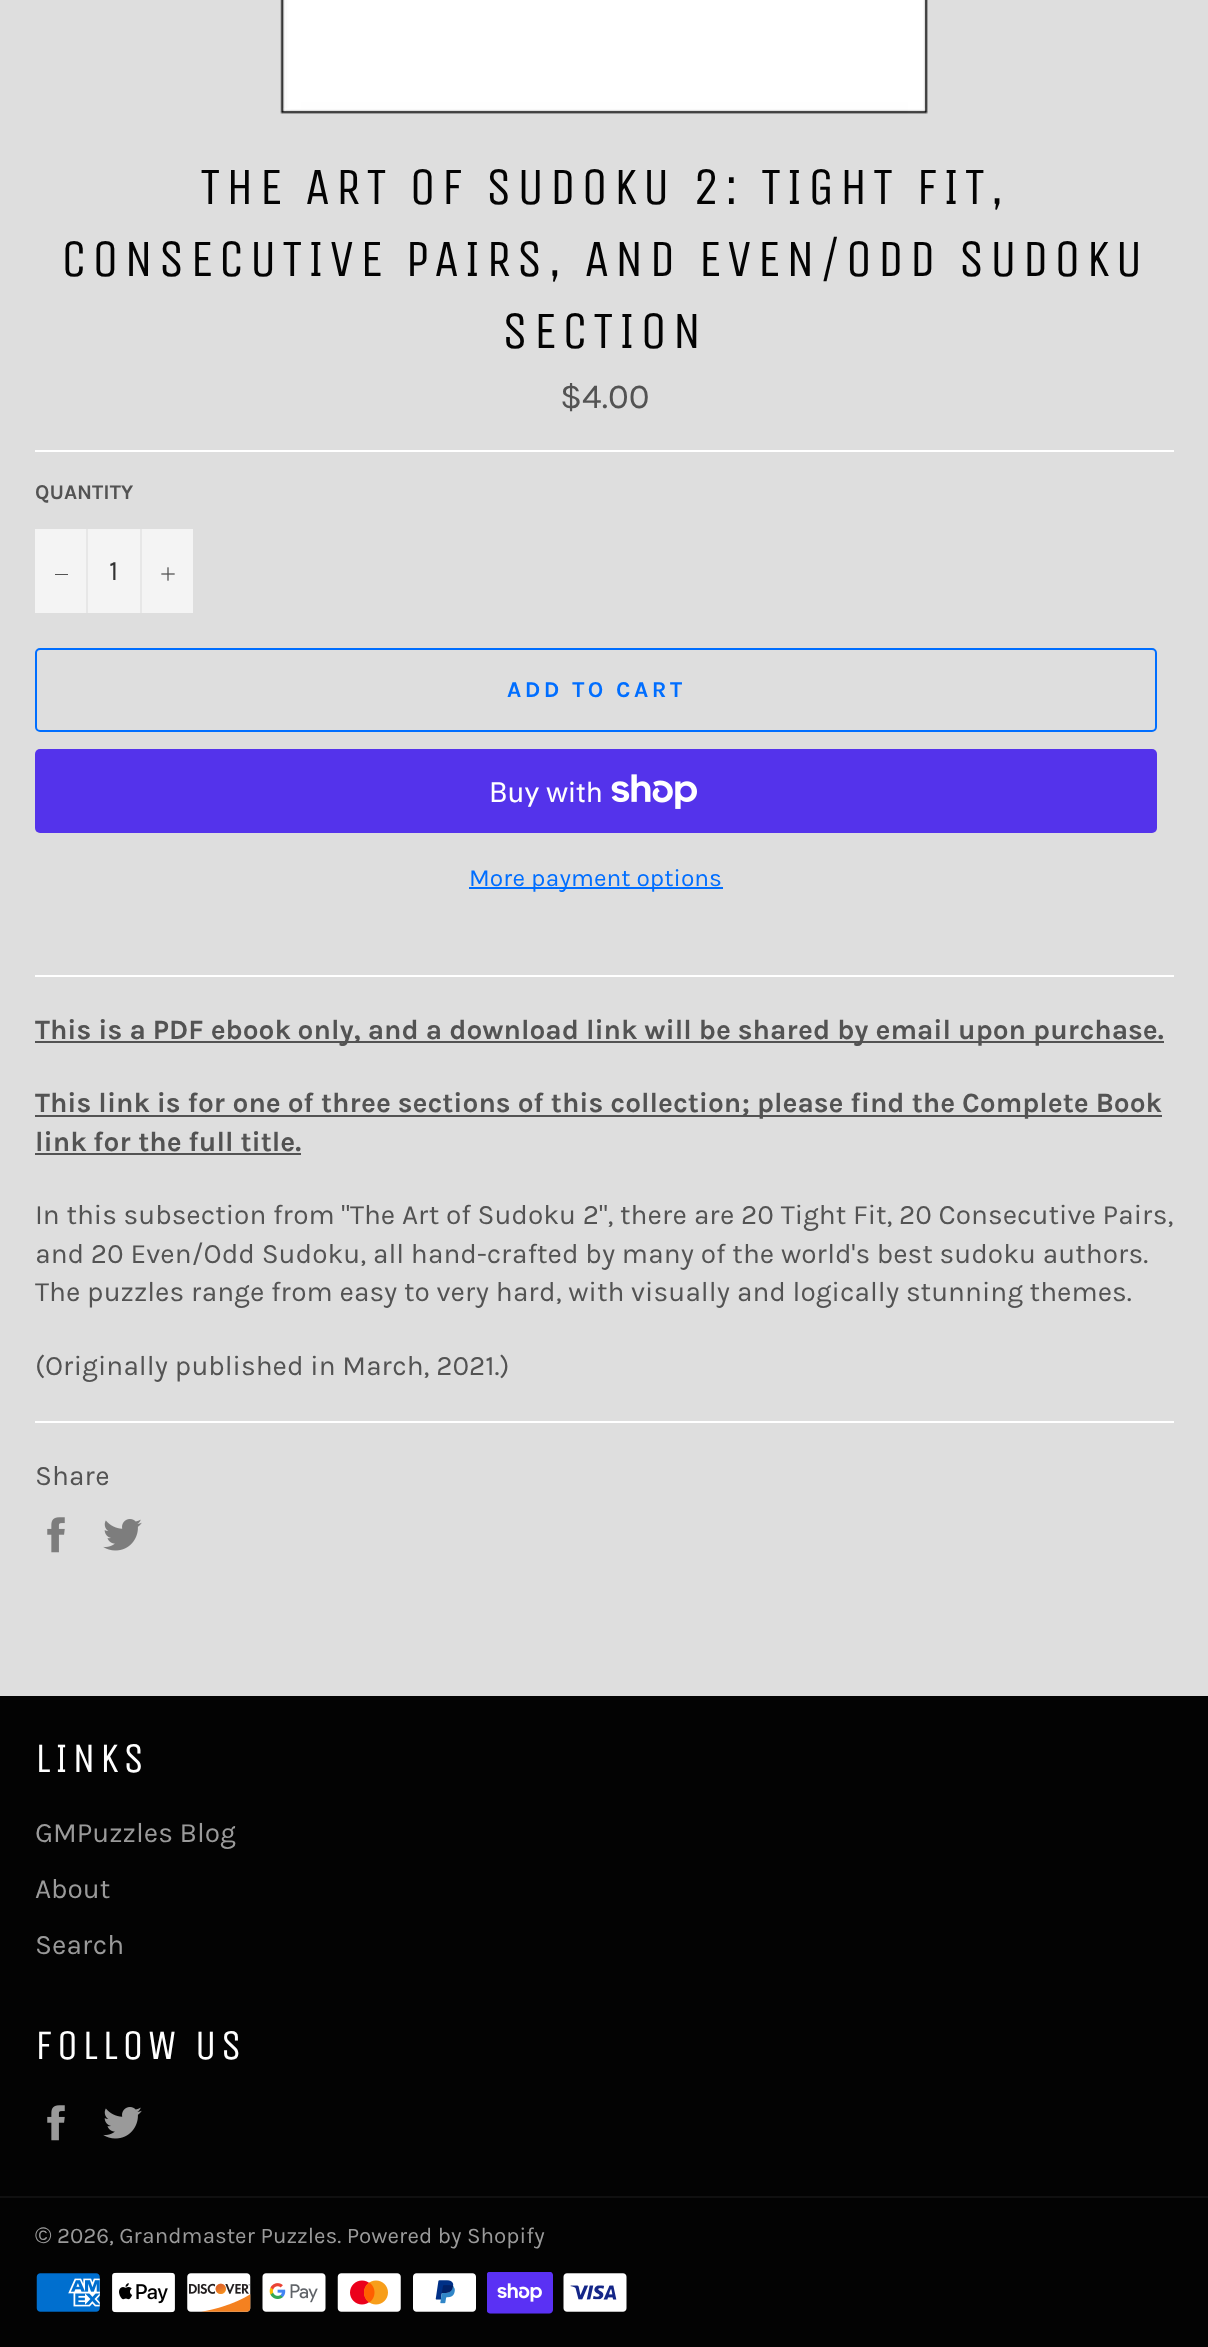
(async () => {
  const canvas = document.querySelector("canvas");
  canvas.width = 1208;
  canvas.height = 2347;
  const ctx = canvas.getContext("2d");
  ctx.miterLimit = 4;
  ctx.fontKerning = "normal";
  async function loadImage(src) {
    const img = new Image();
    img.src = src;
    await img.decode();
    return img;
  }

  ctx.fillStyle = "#dedede";
  ctx.fillRect(0, 0, 1208, 2347);
  ctx.drawImage(await loadImage("img/1.png"), 280, 0, 648, 114);
  for (const [x, y, w, h, color] of [
    [35, 450, 1139, 2, "#ffffff"],
    [35, 529, 158, 84, "#f4f4f4"],
    [86, 529, 2, 84, "#e7e7e7"],
    [55, 574, 13, 1, "#535353"],
    [140, 529, 2, 84, "#e7e7e7"],
  ]) {
    ctx.fillStyle = color;
    ctx.fillRect(x, y, w, h);
  }
  ctx.drawImage(await loadImage("img/2.png"), 161, 567, 14, 14);
  ctx.beginPath();
  ctx.roundRect(36, 649, 1120, 82, 4);
  ctx.strokeStyle = "#006eff";
  ctx.lineWidth = 2;
  ctx.stroke();
  ctx.fillStyle = "#5433eb";
  ctx.beginPath();
  ctx.roundRect(35, 749, 1122, 84, 5);
  ctx.fill();
  ctx.drawImage(await loadImage("img/3.png"), 611, 774, 86, 35);
  for (const [x, y, w, h, color] of [
    [469, 887, 254, 2, "#006eff"],
    [35, 975, 1139, 2, "#ffffff"],
    [35, 1041, 1129, 2, "#535353"],
    [35, 1115, 1127, 2, "#535353"],
    [35, 1153, 266, 2, "#535353"],
    [35, 1421, 1139, 2, "#ffffff"],
  ]) {
    ctx.fillStyle = color;
    ctx.fillRect(x, y, w, h);
  }
  ctx.drawImage(await loadImage("img/4.png"), 47, 1517, 18, 36);
  ctx.drawImage(await loadImage("img/5.png"), 103, 1519, 39, 32);
  ctx.fillStyle = "#030303";
  ctx.fillRect(0, 1696, 1208, 651);
  ctx.drawImage(await loadImage("img/6.png"), 47, 2105, 18, 36);
  ctx.drawImage(await loadImage("img/7.png"), 103, 2107, 39, 32);
  ctx.fillStyle = "#101010";
  ctx.fillRect(0, 2196, 1208, 2);
  ctx.drawImage(await loadImage("img/8.png"), 36, 2273, 64, 39);
  ctx.drawImage(await loadImage("img/9.png"), 112, 2272, 63, 41);
  ctx.drawImage(await loadImage("img/10.png"), 187, 2273, 64, 39);
  ctx.drawImage(await loadImage("img/11.png"), 262, 2273, 64, 39);
  ctx.drawImage(await loadImage("img/12.png"), 337, 2273, 64, 39);
  ctx.drawImage(await loadImage("img/13.png"), 413, 2273, 63, 39);
  ctx.drawImage(await loadImage("img/14.png"), 487, 2272, 66, 42);
  ctx.drawImage(await loadImage("img/15.png"), 563, 2273, 64, 39);
  ctx.letterSpacing = "5.25px";
  ctx.font = "52.5px Unica One";
  ctx.fillStyle = "#030303";
  for (const [text, x, y] of [
    ["THE ART OF SUDOKU 2: TIGHT FIT,", 200, 204],
    ["CONSECUTIVE PAIRS, AND EVEN/ODD SUDOKU", 61, 276],
    ["SECTION", 502, 348],
  ]) {
    ctx.fillText(text, x, y);
  }
  ctx.letterSpacing = "0px";
  ctx.font = "35px Karla";
  ctx.fillStyle = "#535353";
  ctx.fillText("$4.00", 560, 408);
  ctx.font = "bold 21px Karla";
  ctx.fillText("QUANTITY", 35, 499);
  ctx.font = "28px Karla";
  ctx.fillStyle = "#333333";
  ctx.fillText("1", 109, 580);
  ctx.letterSpacing = "3.5px";
  ctx.font = "bold 22.75px Karla";
  ctx.fillStyle = "#006eff";
  ctx.fillText("ADD TO CART", 507, 697);
  ctx.letterSpacing = "0px";
  ctx.font = "28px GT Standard";
  ctx.fillStyle = "#ffffff";
  ctx.fillText("Buy with", 489, 802);
  ctx.font = "24.5px Karla";
  ctx.fillStyle = "#006eff";
  ctx.fillText("More payment options", 469, 886);
  ctx.font = "bold 28px Karla";
  ctx.fillStyle = "#535353";
  for (const [text, x, y] of [
    ["This is a PDF ebook only, and a download link will be shared by email upon purchase.", 35, 1039],
    ["This link is for one of three sections of this collection; please find the Complete Book", 35, 1112],
    ["link for the full title.", 35, 1151],
  ]) {
    ctx.fillText(text, x, y);
  }
  ctx.font = "28px Karla";
  for (const [text, x, y] of [
    ["In this subsection from \"The Art of Sudoku 2\", there are 20 Tight Fit, 20 Consecutive Pairs,", 35, 1224],
    ["and 20 Even/Odd Sudoku, all hand-crafted by many of the world's best sudoku authors.", 35, 1263],
    ["The puzzles range from easy to very hard, with visually and logically stunning themes.", 35, 1301],
    ["(Originally published in March, 2021.)", 35, 1375],
    ["Share", 35, 1485],
  ]) {
    ctx.fillText(text, x, y);
  }
  ctx.letterSpacing = "4.25px";
  ctx.font = "42px Unica One";
  ctx.fillStyle = "#ffffff";
  ctx.fillText("LINKS", 35, 1772);
  ctx.letterSpacing = "0px";
  ctx.font = "28px Karla";
  ctx.fillStyle = "#9a9a9a";
  for (const [text, x, y] of [
    ["GMPuzzles Blog", 35, 1842],
    ["About", 35, 1898],
    ["Search", 35, 1954],
  ]) {
    ctx.fillText(text, x, y);
  }
  ctx.letterSpacing = "4.25px";
  ctx.font = "42px Unica One";
  ctx.fillStyle = "#ffffff";
  ctx.fillText("FOLLOW US", 35, 2059);
  ctx.letterSpacing = "0px";
  ctx.font = "22.4px Liberation Sans";
  ctx.fillStyle = "#9a9a9a";
  ctx.fillText("©", 35, 2243);
  ctx.font = "22.4px Karla";
  ctx.fillText("2026, Grandmaster Puzzles. Powered by Shopify", 57, 2243);
})();
